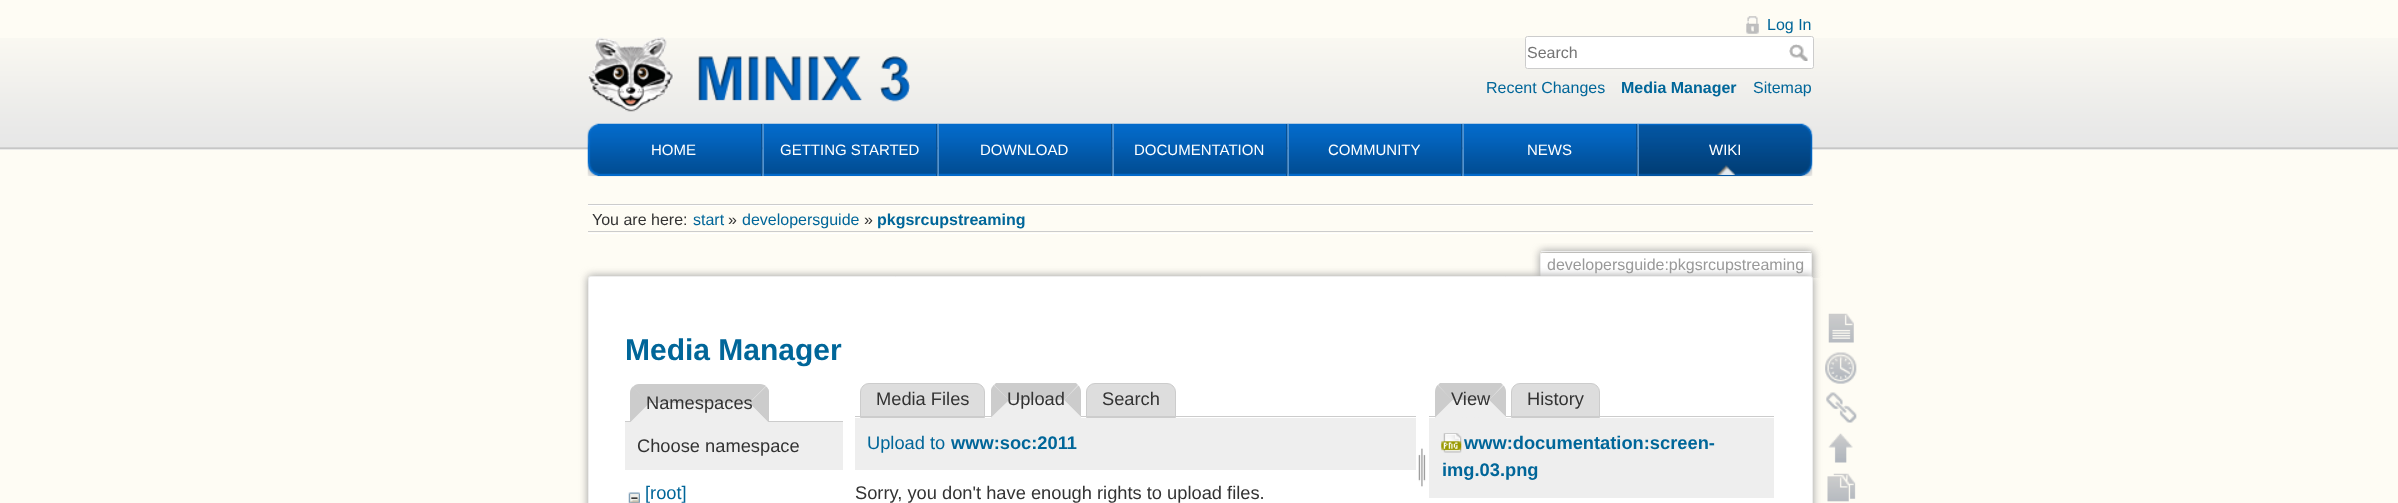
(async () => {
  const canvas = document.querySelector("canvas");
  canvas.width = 2398;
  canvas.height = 503;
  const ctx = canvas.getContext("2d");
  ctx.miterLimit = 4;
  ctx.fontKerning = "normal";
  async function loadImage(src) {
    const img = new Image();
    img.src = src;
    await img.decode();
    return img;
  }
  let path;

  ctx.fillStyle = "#fefcf4";
  ctx.fillRect(0, 0, 2398, 503);
  ctx.drawImage(await loadImage("img/1.png"), 0, 38, 2398, 112);
  ctx.drawImage(await loadImage("img/2.png"), 1746, 16, 13, 18);
  ctx.fillStyle = "#ffffff";
  ctx.beginPath();
  ctx.roundRect(1525.5, 36.5, 288, 32, 2);
  ctx.fill();
  ctx.strokeStyle = "#cccccc";
  ctx.stroke();
  ctx.drawImage(await loadImage("img/3.png"), 1789, 44, 19, 17);
  ctx.drawImage(await loadImage("img/4.png"), 588, 37, 322, 75);
  ctx.drawImage(await loadImage("img/5.png"), 587, 123, 176, 54);
  ctx.fillStyle = "#094f90";
  ctx.fillRect(761, 124, 1, 52);
  ctx.drawImage(await loadImage("img/6.png"), 762, 123, 176, 54);
  ctx.fillRect(936, 124, 1, 52);
  ctx.fillStyle = "#5092d0";
  ctx.fillRect(763, 124, 1, 52);
  ctx.drawImage(await loadImage("img/7.png"), 937, 123, 176, 54);
  ctx.fillStyle = "#094f90";
  ctx.fillRect(1111, 124, 1, 52);
  ctx.fillStyle = "#5092d0";
  ctx.fillRect(938, 124, 1, 52);
  ctx.drawImage(await loadImage("img/7.png"), 1112, 123, 176, 54);
  ctx.fillStyle = "#094f90";
  ctx.fillRect(1286, 124, 1, 52);
  ctx.fillStyle = "#5092d0";
  ctx.fillRect(1113, 124, 1, 52);
  ctx.drawImage(await loadImage("img/7.png"), 1287, 123, 176, 54);
  ctx.fillStyle = "#094f90";
  ctx.fillRect(1461, 124, 1, 52);
  ctx.fillStyle = "#5092d0";
  ctx.fillRect(1288, 124, 1, 52);
  ctx.drawImage(await loadImage("img/7.png"), 1462, 123, 176, 54);
  ctx.fillStyle = "#094f90";
  ctx.fillRect(1636, 124, 1, 52);
  ctx.fillStyle = "#5092d0";
  ctx.fillRect(1463, 124, 1, 52);
  ctx.drawImage(await loadImage("img/8.png"), 1637, 123, 176, 54);
  ctx.fillRect(1638, 124, 1, 52);
  ctx.drawImage(await loadImage("img/9.png"), 1716, 165, 19, 10);
  for (const [x, y, w, h, color] of [
    [588, 204, 1225, 1, "#cccccc"],
    [588, 233, 1225, 1, "#ffffff"],
    [588, 205, 1225, 1, "#ffffff"],
    [588, 231, 1225, 1, "#cccccc"],
  ]) {
    ctx.fillStyle = color;
    ctx.fillRect(x, y, w, h);
  }
  ctx.save();
  ctx.beginPath();
  ctx.rect(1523, 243, 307, 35);
  ctx.clip();
  ctx.fillStyle = "#999999";
  ctx.filter = "blur(4px)";
  ctx.beginPath();
  ctx.roundRect(1540, 251, 273, 27, 2.5);
  ctx.fill();
  ctx.filter = "none";
  ctx.restore();
  ctx.fillStyle = "#ffffff";
  ctx.beginPath();
  ctx.roundRect(1541, 253, 270, 25, [1, 1, 0, 0]);
  ctx.fill();
  for (const [x, y, w, h, color] of [
    [1541, 251, 270, 1, "#eeeeee"],
    [1811, 253, 1, 25, "#eeeeee"],
    [1540, 253, 1, 25, "#eeeeee"],
  ]) {
    ctx.fillStyle = color;
    ctx.fillRect(x, y, w, h);
  }
  ctx.fillStyle = "#999999";
  ctx.filter = "blur(4.5px)";
  ctx.beginPath();
  ctx.roundRect(588, 276, 1225, 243, 2.5);
  ctx.fill();
  ctx.filter = "none";
  ctx.fillStyle = "#ffffff";
  ctx.beginPath();
  ctx.roundRect(588.5, 276.5, 1224, 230, 2);
  ctx.fill();
  ctx.strokeStyle = "#eeeeee";
  ctx.stroke();
  ctx.fillStyle = "#eeeeee";
  ctx.fillRect(625, 422, 218, 48);
  ctx.fillStyle = "#cccccc";
  ctx.fillRect(625, 421, 218, 1);
  ctx.fillStyle = "#eeeeee";
  ctx.beginPath();
  ctx.roundRect(630, 384, 139, 39, [9, 9, 0, 0]);
  ctx.fill();
  ctx.fillStyle = "#cccccc";
  path = new Path2D("M639 384C637 384 634 385 633 387L649 403H749L766 386C765 385 762 384 760 384Z");
  ctx.fill(path);
  path = new Path2D("M769 422H768L749.5 403L766 386.5C767.5 387.5 768.5 389 769 391Z");
  ctx.fill(path);
  ctx.fillStyle = "#eeeeee";
  path = new Path2D("M768 422L749 403H649L630 422Z");
  ctx.fill(path);
  ctx.fillStyle = "#cccccc";
  path = new Path2D("M630 393C630 390.5 631 388 633 386.5L649.5 403L630.5 422H630Z");
  ctx.fill(path);
  ctx.drawImage(await loadImage("img/10.png"), 628, 492, 12, 11);
  ctx.fillStyle = "#dddddd";
  ctx.beginPath();
  ctx.roundRect(860.5, 383.5, 124, 34, [8.5, 8.5, 0, 0]);
  ctx.fill();
  ctx.strokeStyle = "#cccccc";
  ctx.stroke();
  ctx.beginPath();
  ctx.roundRect(1086.5, 383.5, 89, 34, [8.5, 8.5, 0, 0]);
  ctx.fill();
  ctx.stroke();
  ctx.fillStyle = "#cccccc";
  ctx.fillRect(855, 416, 561, 1);
  ctx.fillStyle = "#eeeeee";
  ctx.beginPath();
  ctx.roundRect(991, 383, 90, 35, [9, 9, 0, 0]);
  ctx.fill();
  ctx.save();
  ctx.beginPath();
  ctx.rect(855, 383, 561, 35);
  ctx.clip();
  ctx.fillStyle = "#cccccc";
  path = new Path2D("M1075 382H997L994 385L1009 400H1064L1078 385Z");
  ctx.fill(path);
  ctx.restore();
  ctx.fillStyle = "#cccccc";
  path = new Path2D("M1078.5 385.5L1064 400L1081 417V392C1081 389.5 1080 387 1078.5 385.5Z");
  ctx.fill(path);
  ctx.fillStyle = "#eeeeee";
  path = new Path2D("M1081 417L1064 400H1009L991 418Z");
  ctx.fill(path);
  ctx.fillStyle = "#cccccc";
  path = new Path2D("M991 417.5L1009 400L993.5 385C992.5 386.5 991.5 388 991 390Z");
  ctx.fill(path);
  ctx.fillStyle = "#eeeeee";
  ctx.fillRect(855, 418, 561, 52);
  ctx.drawImage(await loadImage("img/11.png"), 1418, 448, 8, 39);
  ctx.fillStyle = "#dddddd";
  ctx.beginPath();
  ctx.roundRect(1511.5, 383.5, 88, 34, [8.5, 8.5, 0, 0]);
  ctx.fill();
  ctx.stroke();
  ctx.fillStyle = "#cccccc";
  ctx.fillRect(1429, 416, 345, 1);
  ctx.fillStyle = "#eeeeee";
  ctx.beginPath();
  ctx.roundRect(1435, 383, 71, 35, [9, 9, 0, 0]);
  ctx.fill();
  ctx.save();
  ctx.beginPath();
  ctx.rect(1429, 383, 345, 35);
  ctx.clip();
  ctx.fillStyle = "#cccccc";
  path = new Path2D("M1500 382H1441L1438 385L1452 400H1489L1503 385Z");
  ctx.fill(path);
  ctx.restore();
  ctx.fillStyle = "#cccccc";
  path = new Path2D("M1503.5 385.5L1489 400L1506 417V392C1506 389.5 1505 387 1503.5 385.5Z");
  ctx.fill(path);
  ctx.fillStyle = "#eeeeee";
  path = new Path2D("M1506 417L1489 400H1452L1435 418Z");
  ctx.fill(path);
  ctx.fillStyle = "#cccccc";
  path = new Path2D("M1435 417.5L1452.5 400L1437.5 385C1436 387 1435 389.5 1435 392Z");
  ctx.fill(path);
  ctx.fillStyle = "#eeeeee";
  ctx.fillRect(1429, 418, 345, 80);
  ctx.drawImage(await loadImage("img/12.png"), 1441, 433, 21, 20);
  ctx.drawImage(await loadImage("img/13.png"), 1828, 313, 26, 30);
  ctx.drawImage(await loadImage("img/14.png"), 1825, 352, 32, 32);
  ctx.drawImage(await loadImage("img/15.png"), 1826, 392, 31, 31);
  ctx.drawImage(await loadImage("img/16.png"), 1828, 433, 25, 30);
  ctx.drawImage(await loadImage("img/17.png"), 1827, 473, 29, 29);
  ctx.font = "16px Liberation Sans";
  ctx.fillStyle = "#006699";
  ctx.fillText("Log In", 1767, 30);
  ctx.fillStyle = "#757575";
  ctx.fillText("Search", 1527, 58);
  ctx.fillStyle = "#006699";
  ctx.fillText("Recent Changes", 1486, 93);
  ctx.font = "bold 16px Liberation Sans";
  ctx.fillText("Media Manager", 1621, 93);
  ctx.font = "16px Liberation Sans";
  ctx.fillText("Sitemap", 1753, 93);
  ctx.font = "15px Liberation Sans";
  ctx.fillStyle = "#ffffff";
  for (const [text, x, y] of [
    ["HOME", 651, 155],
    ["GETTING STARTED", 780, 155],
    ["DOWNLOAD", 980, 155],
    ["DOCUMENTATION", 1134, 155],
    ["COMMUNITY", 1328, 155],
    ["NEWS", 1527, 155],
    ["WIKI", 1709, 155],
  ]) {
    ctx.fillText(text, x, y);
  }
  ctx.font = "16px Liberation Sans";
  ctx.fillStyle = "#333333";
  ctx.fillText("You are here:", 592, 225);
  ctx.fillStyle = "#006699";
  ctx.fillText("start", 693, 225);
  ctx.fillStyle = "#333333";
  ctx.fillText("»", 728, 225);
  ctx.fillStyle = "#006699";
  ctx.fillText("developersguide", 742, 225);
  ctx.fillStyle = "#333333";
  ctx.fillText("»", 864, 225);
  ctx.font = "bold 16px Liberation Sans";
  ctx.fillStyle = "#006699";
  ctx.fillText("pkgsrcupstreaming", 877, 225);
  ctx.font = "16px Liberation Sans";
  ctx.fillStyle = "#999999";
  ctx.fillText("developersguide:pkgsrcupstreaming", 1547, 270);
  ctx.font = "bold 30px Liberation Sans";
  ctx.fillStyle = "#006699";
  ctx.fillText("Media Manager", 625, 360);
  ctx.font = "18.3px Liberation Sans";
  ctx.fillStyle = "#333333";
  ctx.fillText("Namespaces", 646, 409);
  ctx.fillText("Choose namespace", 637, 452);
  ctx.fillStyle = "#006699";
  ctx.fillText("[root]", 645, 499);
  ctx.fillStyle = "#333333";
  for (const [text, x, y] of [
    ["Media Files", 876, 405],
    ["Upload", 1007, 405],
    ["Search", 1102, 405],
  ]) {
    ctx.fillText(text, x, y);
  }
  ctx.fillStyle = "#006699";
  ctx.fillText("Upload to", 867, 449);
  ctx.font = "bold 18.3px Liberation Sans";
  ctx.fillText("www:soc:2011", 951, 449);
  ctx.font = "18.3px Liberation Sans";
  ctx.fillStyle = "#333333";
  for (const [text, x, y] of [
    ["Sorry, you don't have enough rights to upload files.", 855, 499],
    ["View", 1451, 405],
    ["History", 1527, 405],
  ]) {
    ctx.fillText(text, x, y);
  }
  ctx.font = "bold 18.3px Liberation Sans";
  ctx.fillStyle = "#006699";
  ctx.fillText("www:documentation:screen-", 1464, 449);
  ctx.fillText("img.03.png", 1442, 476);
})();
